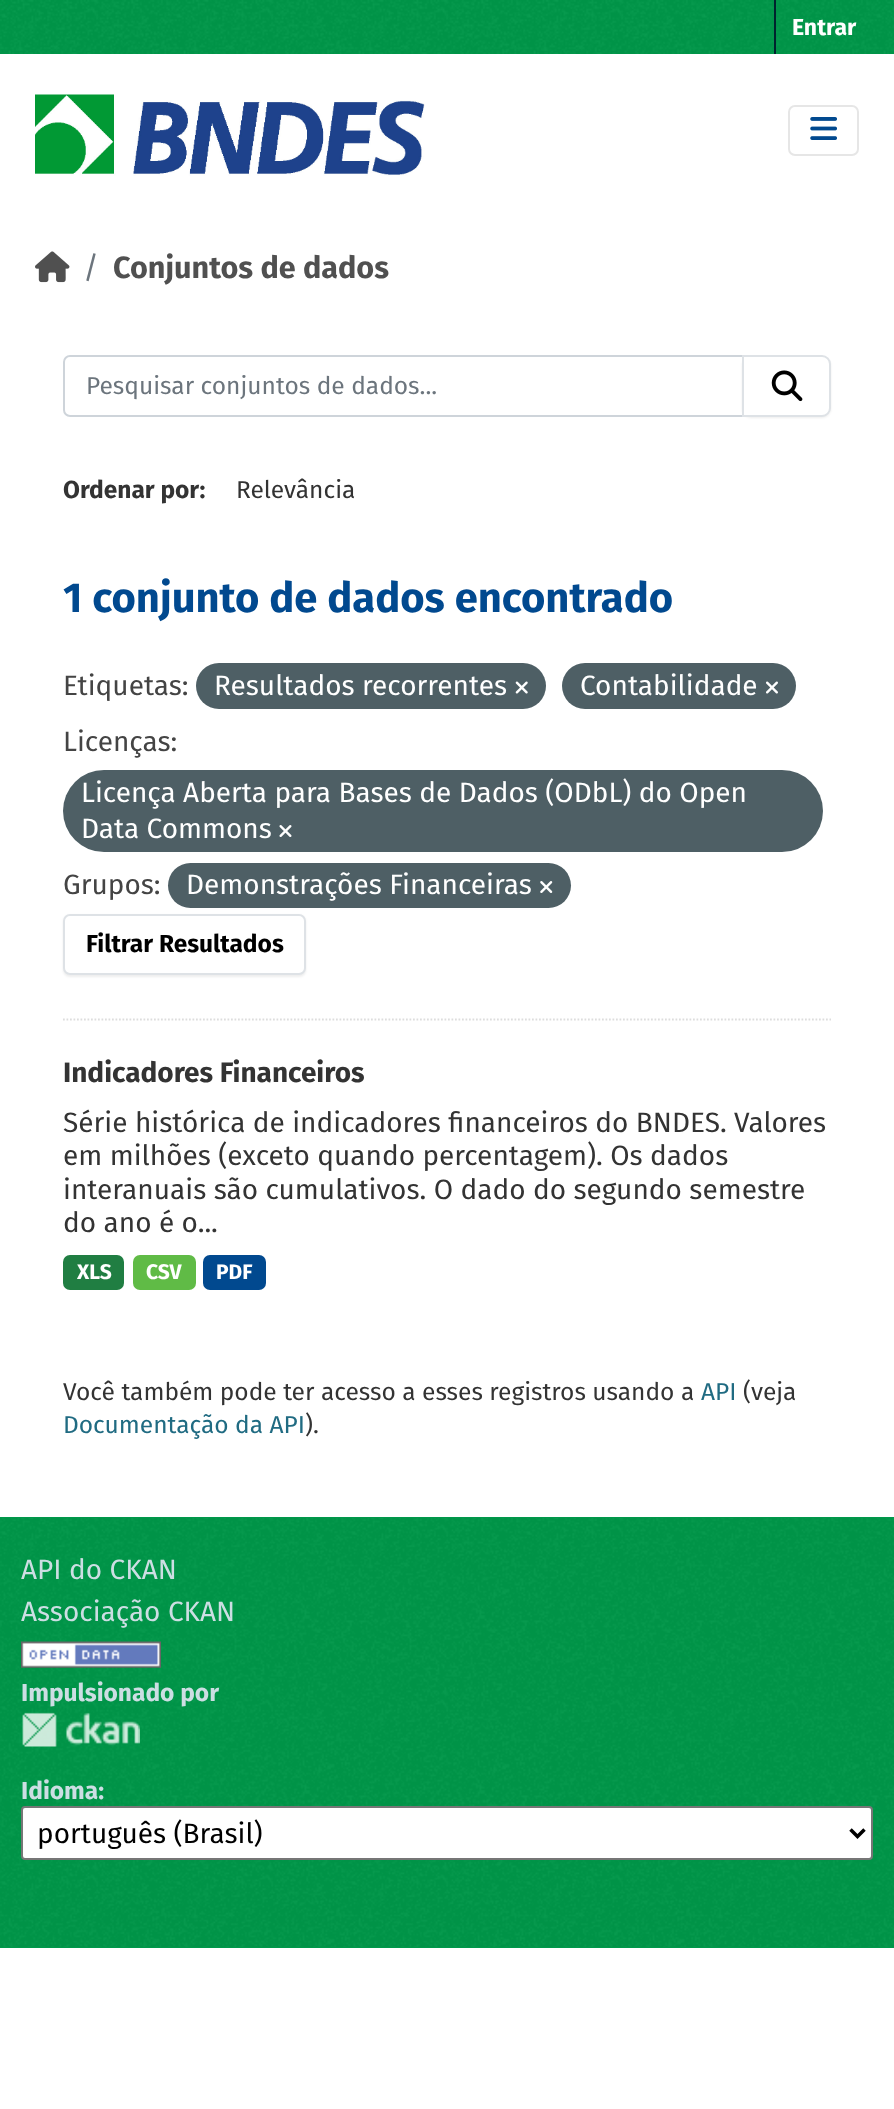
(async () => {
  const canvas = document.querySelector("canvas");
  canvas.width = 894;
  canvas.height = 2109;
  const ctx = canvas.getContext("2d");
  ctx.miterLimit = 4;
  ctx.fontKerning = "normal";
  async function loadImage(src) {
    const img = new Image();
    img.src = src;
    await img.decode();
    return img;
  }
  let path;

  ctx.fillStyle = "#ffffff";
  ctx.fillRect(0, 0, 894, 2109);
  ctx.fillStyle = "#00984a";
  ctx.fillRect(0, 0, 894, 54);
  ctx.drawImage(await loadImage("img/1.png"), 0, 0, 894, 54);
  ctx.fillStyle = "#00232e";
  ctx.fillRect(774, 0, 2, 54);
  ctx.drawImage(await loadImage("img/2.png"), 35, 94, 390, 82);
  ctx.beginPath();
  ctx.roundRect(789, 106, 69, 49, 6);
  ctx.strokeStyle = "#e6e6e6";
  ctx.lineWidth = 2;
  ctx.stroke();
  ctx.drawImage(await loadImage("img/3.png"), 810, 117, 27, 23);
  ctx.drawImage(await loadImage("img/4.png"), 35, 251, 35, 32);
  path = new Path2D("M63 1019.5H831");
  ctx.strokeStyle = "#dddddd";
  ctx.lineWidth = 1.8;
  ctx.setLineDash([1.75, 1.75]);
  ctx.stroke(path);
  ctx.beginPath();
  ctx.roundRect(64, 356, 679, 60, [6, 0, 0, 6]);
  ctx.strokeStyle = "#ced4da";
  ctx.lineWidth = 2;
  ctx.setLineDash([]);
  ctx.stroke();
  ctx.fillStyle = "rgba(0, 0, 0, 0.07)";
  ctx.filter = "blur(1px)";
  ctx.beginPath();
  ctx.roundRect(742, 357, 89, 61, 9);
  ctx.fill();
  ctx.filter = "none";
  ctx.fillStyle = "#ffffff";
  ctx.beginPath();
  ctx.roundRect(743, 356, 87, 60, [0, 8, 8, 0]);
  ctx.fill();
  ctx.strokeStyle = "#dee2e6";
  ctx.stroke();
  ctx.drawImage(await loadImage("img/5.png"), 771, 370, 32, 32);
  ctx.fillStyle = "#4e5f65";
  ctx.beginPath();
  ctx.roundRect(196, 663, 350, 46, 23);
  ctx.fill();
  ctx.drawImage(await loadImage("img/6.png"), 515, 681, 13, 13);
  ctx.beginPath();
  ctx.roundRect(562, 663, 234, 46, 23);
  ctx.fill();
  ctx.drawImage(await loadImage("img/7.png"), 766, 681, 12, 13);
  ctx.beginPath();
  ctx.roundRect(63, 770, 760, 82, 41);
  ctx.fill();
  ctx.drawImage(await loadImage("img/8.png"), 279, 825, 13, 12);
  ctx.beginPath();
  ctx.roundRect(168, 863, 403, 45, 22.5);
  ctx.fill();
  ctx.drawImage(await loadImage("img/9.png"), 540, 881, 13, 12);
  ctx.fillStyle = "rgba(0, 0, 0, 0.07)";
  ctx.filter = "blur(1px)";
  ctx.beginPath();
  ctx.roundRect(63, 915, 243, 62, 7);
  ctx.fill();
  ctx.filter = "none";
  ctx.fillStyle = "#ffffff";
  ctx.beginPath();
  ctx.roundRect(64, 915, 241, 59, 6);
  ctx.fill();
  ctx.stroke();
  ctx.fillStyle = "#207e42";
  ctx.beginPath();
  ctx.roundRect(63, 1255, 61, 35, 7);
  ctx.fill();
  ctx.fillStyle = "#60bb46";
  ctx.beginPath();
  ctx.roundRect(133, 1255, 63, 35, 7);
  ctx.fill();
  ctx.fillStyle = "#01498f";
  ctx.beginPath();
  ctx.roundRect(203, 1255, 63, 35, 7);
  ctx.fill();
  ctx.fillStyle = "#00984a";
  ctx.fillRect(0, 1517, 894, 431);
  ctx.drawImage(await loadImage("img/10.png"), 0, 1518, 894, 429);
  ctx.drawImage(await loadImage("img/11.png"), 21, 1641, 140, 27);
  ctx.drawImage(await loadImage("img/12.png"), 22, 1712, 118, 35);
  ctx.fillStyle = "#ffffff";
  ctx.beginPath();
  ctx.roundRect(22, 1807, 850, 52, 3);
  ctx.fill();
  ctx.strokeStyle = "#767676";
  ctx.stroke();
  path = new Path2D("M850.5 1829.5L857.5 1836.5L864.5 1829.5");
  ctx.strokeStyle = "#000000";
  ctx.lineWidth = 3.5;
  ctx.stroke(path);
  ctx.font = "bold 23px Fira Sans";
  ctx.fillText("Entrar", 792, 35);
  ctx.font = "30.6px Fira Sans";
  ctx.fillStyle = "#6c757d";
  ctx.fillText("/", 83, 278);
  ctx.font = "bold 30.6px Fira Sans";
  ctx.fillStyle = "#505050";
  ctx.fillText("Conjuntos de dados", 113, 278);
  ctx.font = "24.5px Fira Sans";
  ctx.fillStyle = "#6c757d";
  ctx.fillText("Pesquisar conjuntos de dados...", 86, 394);
  ctx.font = "bold 24.5px Fira Sans";
  ctx.fillStyle = "#333333";
  ctx.fillText("Ordenar por:", 63, 498);
  ctx.font = "24.5px Fira Sans";
  ctx.fillText("Relevância", 236, 498);
  ctx.font = "bold 41.75px Fira Sans";
  ctx.fillStyle = "#01498f";
  ctx.fillText("1 conjunto de dados encontrado", 63, 612);
  ctx.font = "28px Fira Sans";
  ctx.fillStyle = "#444444";
  ctx.fillText("Etiquetas:", 63, 695);
  ctx.fillStyle = "#ffffff";
  ctx.fillText("Resultados recorrentes", 214, 695);
  ctx.fillText("Contabilidade", 580, 695);
  ctx.fillStyle = "#444444";
  ctx.fillText("Licenças:", 63, 751);
  ctx.fillStyle = "#ffffff";
  ctx.fillText("Licença Aberta para Bases de Dados (ODbL) do Open", 81, 802);
  ctx.fillText("Data Commons", 81, 838);
  ctx.fillStyle = "#444444";
  ctx.fillText("Grupos:", 63, 894);
  ctx.fillStyle = "#ffffff";
  ctx.fillText("Demonstrações Financeiras", 186, 894);
  ctx.font = "bold 24.5px Fira Sans";
  ctx.fillStyle = "#000000";
  ctx.fillText("Filtrar Resultados", 86, 952);
  ctx.font = "bold 28px Fira Sans";
  ctx.fillStyle = "#333333";
  ctx.fillText("Indicadores Financeiros", 63, 1082);
  ctx.font = "28px Fira Sans";
  for (const [text, x, y] of [
    ["Série histórica de indicadores financeiros do BNDES. Valores", 63, 1132],
    ["em milhões (exceto quando percentagem). Os dados", 63, 1165],
    ["interanuais são cumulativos. O dado do segundo semestre", 63, 1199],
    ["do ano é o...", 63, 1232],
  ]) {
    ctx.fillText(text, x, y);
  }
  ctx.font = "bold 21px Fira Sans";
  ctx.fillStyle = "#ffffff";
  for (const [text, x, y] of [
    ["XLS", 77, 1279],
    ["CSV", 146, 1279],
    ["PDF", 216, 1279],
  ]) {
    ctx.fillText(text, x, y);
  }
  ctx.font = "24.5px Fira Sans";
  ctx.fillStyle = "#333333";
  ctx.fillText("Você também pode ter acesso a esses registros usando a", 63, 1400);
  ctx.fillStyle = "#206b82";
  ctx.fillText("API", 701, 1400);
  ctx.fillStyle = "#333333";
  ctx.fillText("(veja", 743, 1400);
  ctx.fillStyle = "#206b82";
  ctx.fillText("Documentação da API", 63, 1433);
  ctx.fillStyle = "#333333";
  ctx.fillText(").", 305, 1433);
  ctx.font = "28px Fira Sans";
  ctx.fillStyle = "#ccdee3";
  ctx.fillText("API do CKAN", 21, 1579);
  ctx.fillText("Associação CKAN", 21, 1621);
  ctx.font = "bold 24.5px Fira Sans";
  ctx.fillText("Impulsionado por", 21, 1701);
  ctx.fillText("Idioma:", 21, 1799);
  ctx.font = "28px Fira Sans";
  ctx.fillStyle = "#000000";
  ctx.fillText("português (Brasil)", 37, 1843);
})();
